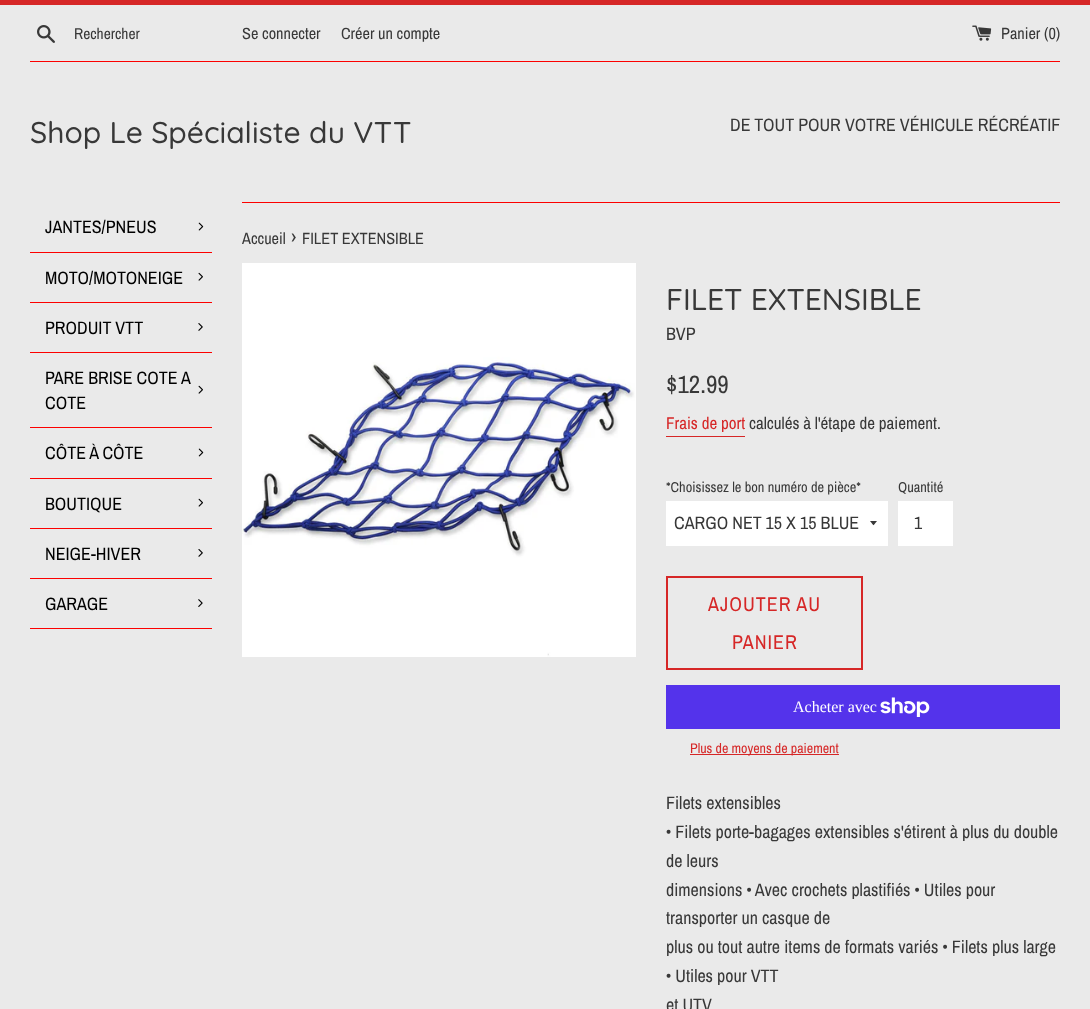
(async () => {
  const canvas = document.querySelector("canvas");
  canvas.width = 1090;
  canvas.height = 1009;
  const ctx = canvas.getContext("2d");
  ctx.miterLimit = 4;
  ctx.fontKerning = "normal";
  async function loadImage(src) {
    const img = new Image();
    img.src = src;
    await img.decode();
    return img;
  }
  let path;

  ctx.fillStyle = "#eaeaea";
  ctx.fillRect(0, 0, 1090, 1009);
  ctx.fillStyle = "#d62727";
  ctx.fillRect(0, 0, 1090, 5);
  ctx.drawImage(await loadImage("img/1.png"), 37, 25, 18, 18);
  ctx.drawImage(await loadImage("img/2.png"), 972, 25, 20, 16);
  ctx.fillStyle = "#fc0100";
  ctx.fillRect(30, 61, 1030, 1);
  ctx.fillRect(30, 252, 182, 1);
  ctx.drawImage(await loadImage("img/3.png"), 198, 222, 6, 9);
  ctx.fillRect(30, 302, 182, 1);
  ctx.drawImage(await loadImage("img/4.png"), 198, 272, 5, 9);
  ctx.fillRect(30, 352, 182, 1);
  ctx.drawImage(await loadImage("img/5.png"), 198, 323, 5, 8);
  ctx.fillRect(30, 427, 182, 1);
  ctx.drawImage(await loadImage("img/6.png"), 198, 385, 5, 9);
  ctx.fillRect(30, 478, 182, 1);
  ctx.drawImage(await loadImage("img/7.png"), 198, 448, 6, 9);
  ctx.fillRect(30, 528, 182, 1);
  ctx.drawImage(await loadImage("img/8.png"), 198, 498, 5, 9);
  ctx.fillRect(30, 578, 182, 1);
  ctx.drawImage(await loadImage("img/9.png"), 198, 549, 5, 8);
  ctx.fillRect(30, 628, 182, 1);
  ctx.drawImage(await loadImage("img/10.png"), 198, 599, 5, 8);
  ctx.fillRect(242, 202, 818, 1);
  ctx.drawImage(await loadImage("img/11.png"), 242, 263, 394, 394);
  ctx.fillStyle = "#d62727";
  ctx.fillRect(666, 436, 79, 1);
  ctx.fillStyle = "#ffffff";
  ctx.fillRect(666, 501, 222, 45);
  ctx.fillStyle = "#383838";
  path = new Path2D("M870 521C874.5 526.5 872.5 526.5 877 521Z");
  ctx.fill(path);
  ctx.fillStyle = "#ffffff";
  ctx.fillRect(898, 501, 55, 45);
  ctx.strokeStyle = "#d62727";
  ctx.lineWidth = 2;
  ctx.strokeRect(667, 577, 195, 92);
  ctx.fillStyle = "#5433eb";
  ctx.fillRect(666, 685, 394, 44);
  ctx.drawImage(await loadImage("img/12.png"), 880, 697, 50, 20);
  ctx.fillStyle = "#d62727";
  ctx.fillRect(690, 754, 149, 1);
  ctx.font = "15.5px Archivo Narrow";
  ctx.fillStyle = "#383838";
  ctx.fillText("Rechercher", 74, 39);
  ctx.font = "16.25px Archivo Narrow";
  for (const [text, x, y] of [
    ["Se connecter", 242, 39],
    ["Créer un compte", 341, 39],
    ["Panier (0)", 1001, 39],
  ]) {
    ctx.fillText(text, x, y);
  }
  ctx.font = "500 30px Quicksand";
  ctx.fillText("Shop Le Spécialiste du VTT", 30, 143);
  ctx.font = "18px Archivo Narrow";
  ctx.fillText("DE TOUT POUR VOTRE VÉHICULE RÉCRÉATIF", 730, 131);
  ctx.fillStyle = "#000000";
  for (const [text, x, y] of [
    ["JANTES/PNEUS", 45, 233],
    ["MOTO/MOTONEIGE", 45, 284],
    ["PRODUIT VTT", 45, 334],
    ["PARE BRISE COTE A", 45, 384],
    ["COTE", 45, 409],
    ["CÔTE À CÔTE", 45, 459],
    ["BOUTIQUE", 45, 510],
    ["NEIGE-HIVER", 45, 560],
    ["GARAGE", 45, 610],
  ]) {
    ctx.fillText(text, x, y);
  }
  ctx.font = "16.25px Archivo Narrow";
  ctx.fillStyle = "#383838";
  ctx.fillText("Accueil", 242, 244);
  ctx.font = "20px Archivo Narrow";
  ctx.fillText("›", 291, 244);
  ctx.font = "16.25px Archivo Narrow";
  ctx.fillText("FILET EXTENSIBLE", 302, 244);
  ctx.font = "500 30px Quicksand";
  ctx.fillText("FILET EXTENSIBLE", 666, 310);
  ctx.font = "18px Archivo Narrow";
  ctx.fillText("BVP", 666, 340);
  ctx.font = "25px Archivo Narrow";
  ctx.fillText("$12.99", 666, 393);
  ctx.font = "17px Archivo Narrow";
  ctx.fillStyle = "#d62727";
  ctx.fillText("Frais de port", 666, 429);
  ctx.fillStyle = "#383838";
  ctx.fillText("calculés à l'étape de paiement.", 749, 429);
  ctx.font = "14.4px Archivo Narrow";
  ctx.fillText("*Choisissez le bon numéro de pièce*", 666, 492);
  ctx.font = "18px Archivo Narrow";
  ctx.fillText("CARGO NET 15 X 15 BLUE", 674, 529);
  ctx.font = "14.4px Archivo Narrow";
  ctx.fillText("Quantité", 898, 492);
  ctx.font = "18px Archivo Narrow";
  ctx.fillText("1", 914, 529);
  ctx.letterSpacing = "1px";
  ctx.font = "20px Archivo Narrow";
  ctx.fillStyle = "#d62727";
  ctx.fillText("AJOUTER AU", 708, 611);
  ctx.fillText("PANIER", 732, 649);
  ctx.letterSpacing = "0px";
  ctx.font = "16px Liberation Serif";
  ctx.fillStyle = "#ffffff";
  ctx.fillText("Acheter avec", 793, 712);
  ctx.font = "14px Archivo Narrow";
  ctx.fillStyle = "#d62727";
  ctx.fillText("Plus de moyens de paiement", 690, 753);
  ctx.font = "18px Archivo Narrow";
  ctx.fillStyle = "#383838";
  for (const [text, x, y] of [
    ["Filets extensibles", 666, 809],
    ["• Filets porte-bagages extensibles s'étirent à plus du double", 666, 838],
    ["de leurs", 666, 867],
    ["dimensions • Avec crochets plastifiés • Utiles pour", 666, 896],
    ["transporter un casque de", 666, 924],
    ["plus ou tout autre items de formats variés • Filets plus large", 666, 953],
    ["• Utiles pour VTT", 666, 982],
    ["et UTV", 666, 1011],
  ]) {
    ctx.fillText(text, x, y);
  }
})();
